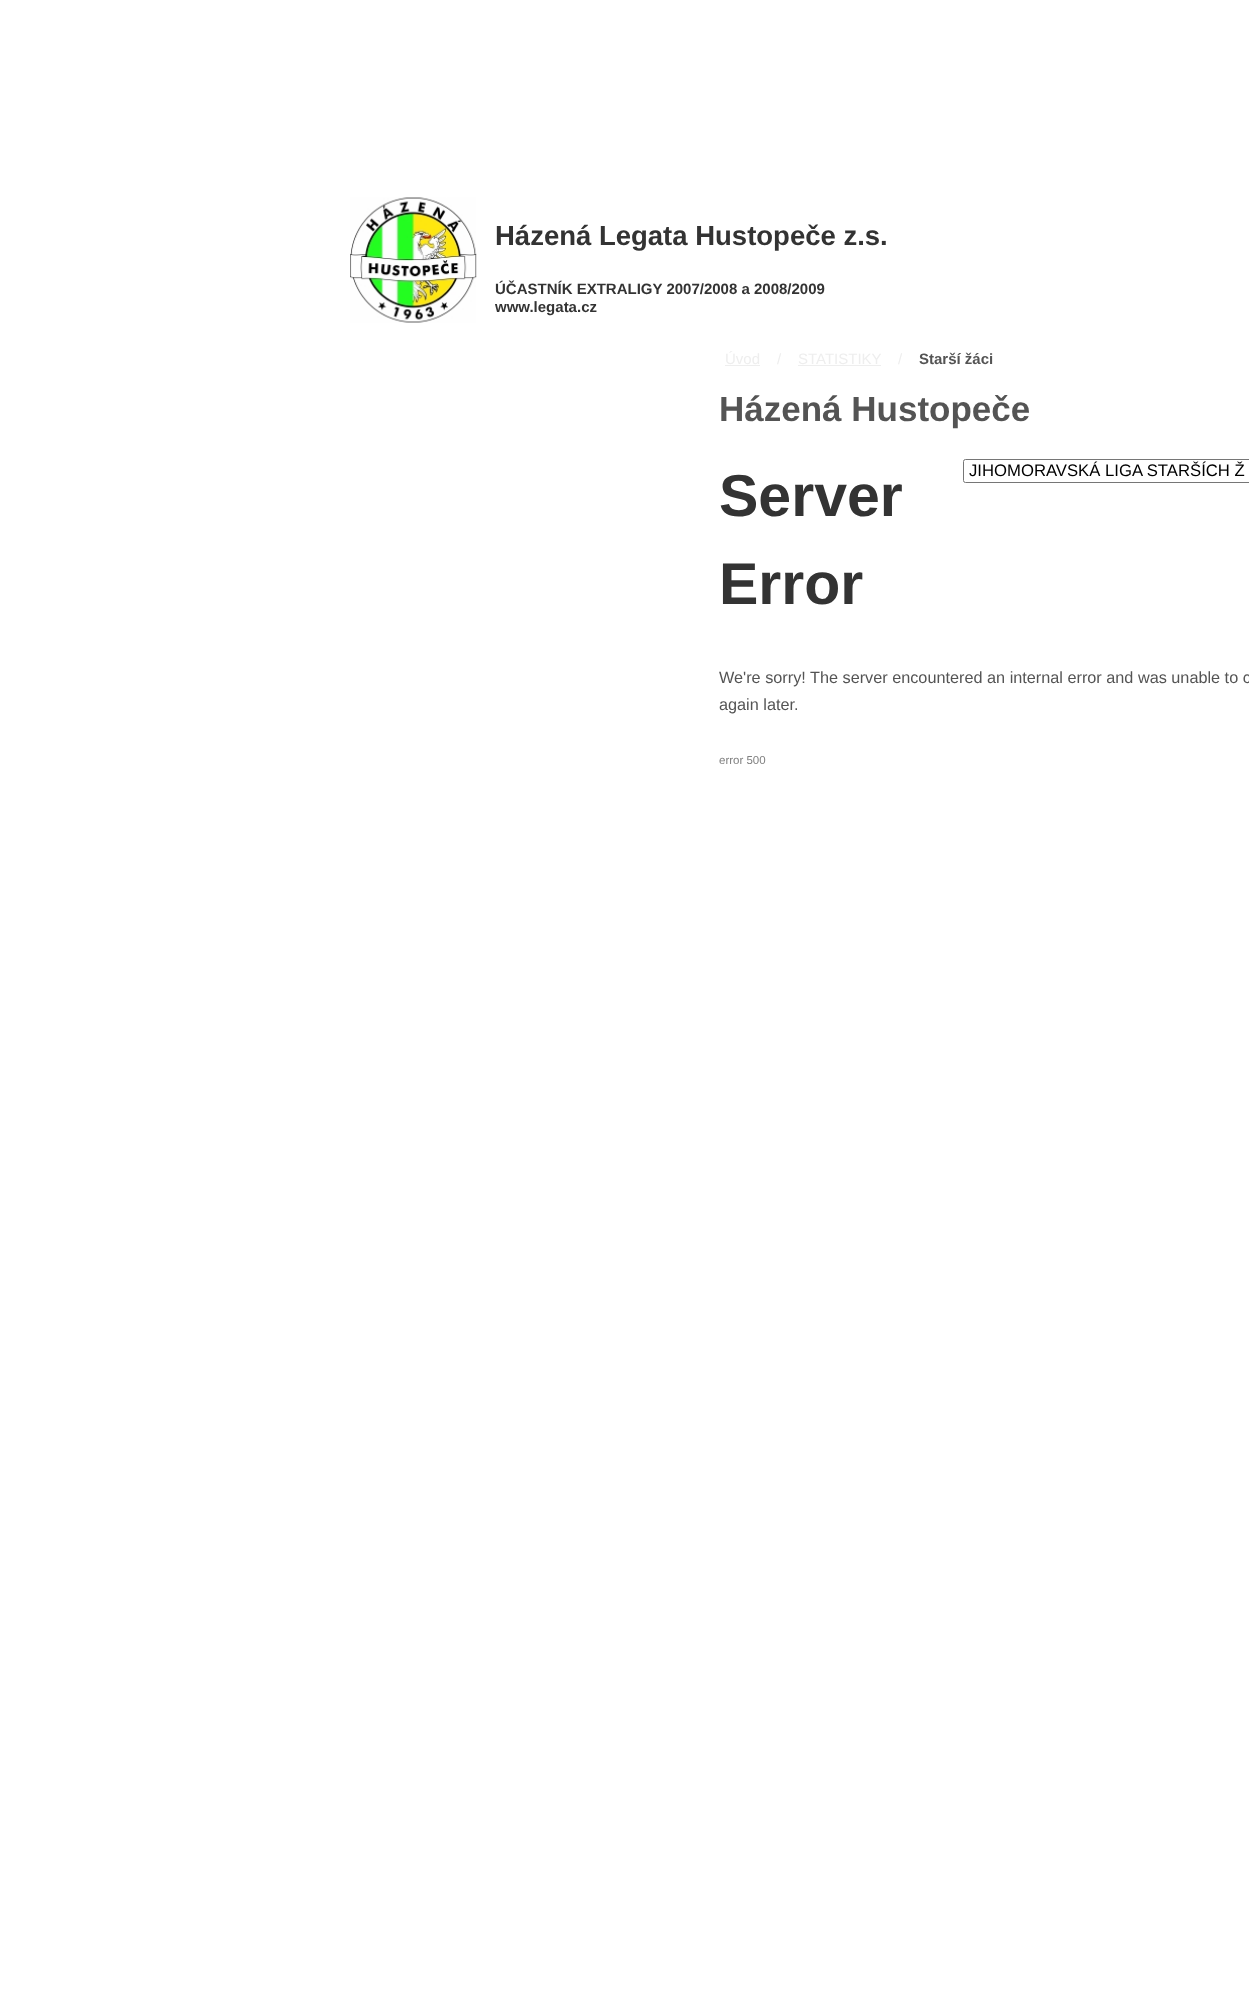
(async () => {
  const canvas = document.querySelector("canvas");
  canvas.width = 1249;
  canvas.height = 1996;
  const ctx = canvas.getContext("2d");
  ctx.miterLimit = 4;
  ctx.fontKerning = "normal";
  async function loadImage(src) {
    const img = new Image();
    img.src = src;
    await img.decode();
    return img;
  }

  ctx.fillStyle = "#ffffff";
  ctx.fillRect(0, 0, 1249, 1996);
  ctx.drawImage(await loadImage("img/1.png"), 350, 197, 127, 126);
  ctx.fillStyle = "#eeeeee";
  ctx.fillRect(725, 365, 35, 1);
  ctx.fillRect(798, 365, 83, 1);
  ctx.beginPath();
  ctx.roundRect(963.5, 459.5, 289, 23, 2);
  ctx.strokeStyle = "#767676";
  ctx.stroke();
  ctx.font = "bold 27.5px Liberation Sans";
  ctx.fillStyle = "#333333";
  ctx.fillText("Házená Legata Hustopeče z.s.", 495, 245);
  ctx.font = "bold 15px Liberation Sans";
  ctx.fillText("ÚČASTNÍK EXTRALIGY 2007/2008 a 2008/2009", 495, 294);
  ctx.fillText("www.legata.cz", 495, 312);
  ctx.font = "15px Liberation Sans";
  ctx.fillStyle = "#eeeeee";
  for (const [text, x, y] of [
    ["Úvod", 725, 364],
    ["/", 777, 364],
    ["STATISTIKY", 798, 364],
    ["/", 898, 364],
  ]) {
    ctx.fillText(text, x, y);
  }
  ctx.font = "bold 15px Liberation Sans";
  ctx.fillStyle = "#545454";
  ctx.fillText("Starší žáci", 919, 364);
  ctx.font = "bold 35px Liberation Sans";
  ctx.fillText("Házená Hustopeče", 719, 421);
  ctx.font = "16.7px Liberation Sans";
  ctx.fillStyle = "#000000";
  ctx.fillText("JIHOMORAVSKÁ LIGA STARŠÍCH Ž", 969, 476);
  ctx.font = "bold 59px Liberation Sans";
  ctx.fillStyle = "#333333";
  ctx.fillText("Server", 719, 516);
  ctx.fillText("Error", 719, 604);
  ctx.font = "16.25px Liberation Sans";
  ctx.fillStyle = "#545454";
  ctx.fillText("We're sorry! The server encountered an internal error and was unable to c", 719, 683);
  ctx.fillText("again later.", 719, 710);
  ctx.font = "11.5px Liberation Sans";
  ctx.fillStyle = "#808080";
  ctx.fillText("error 500", 719, 764);
})();
